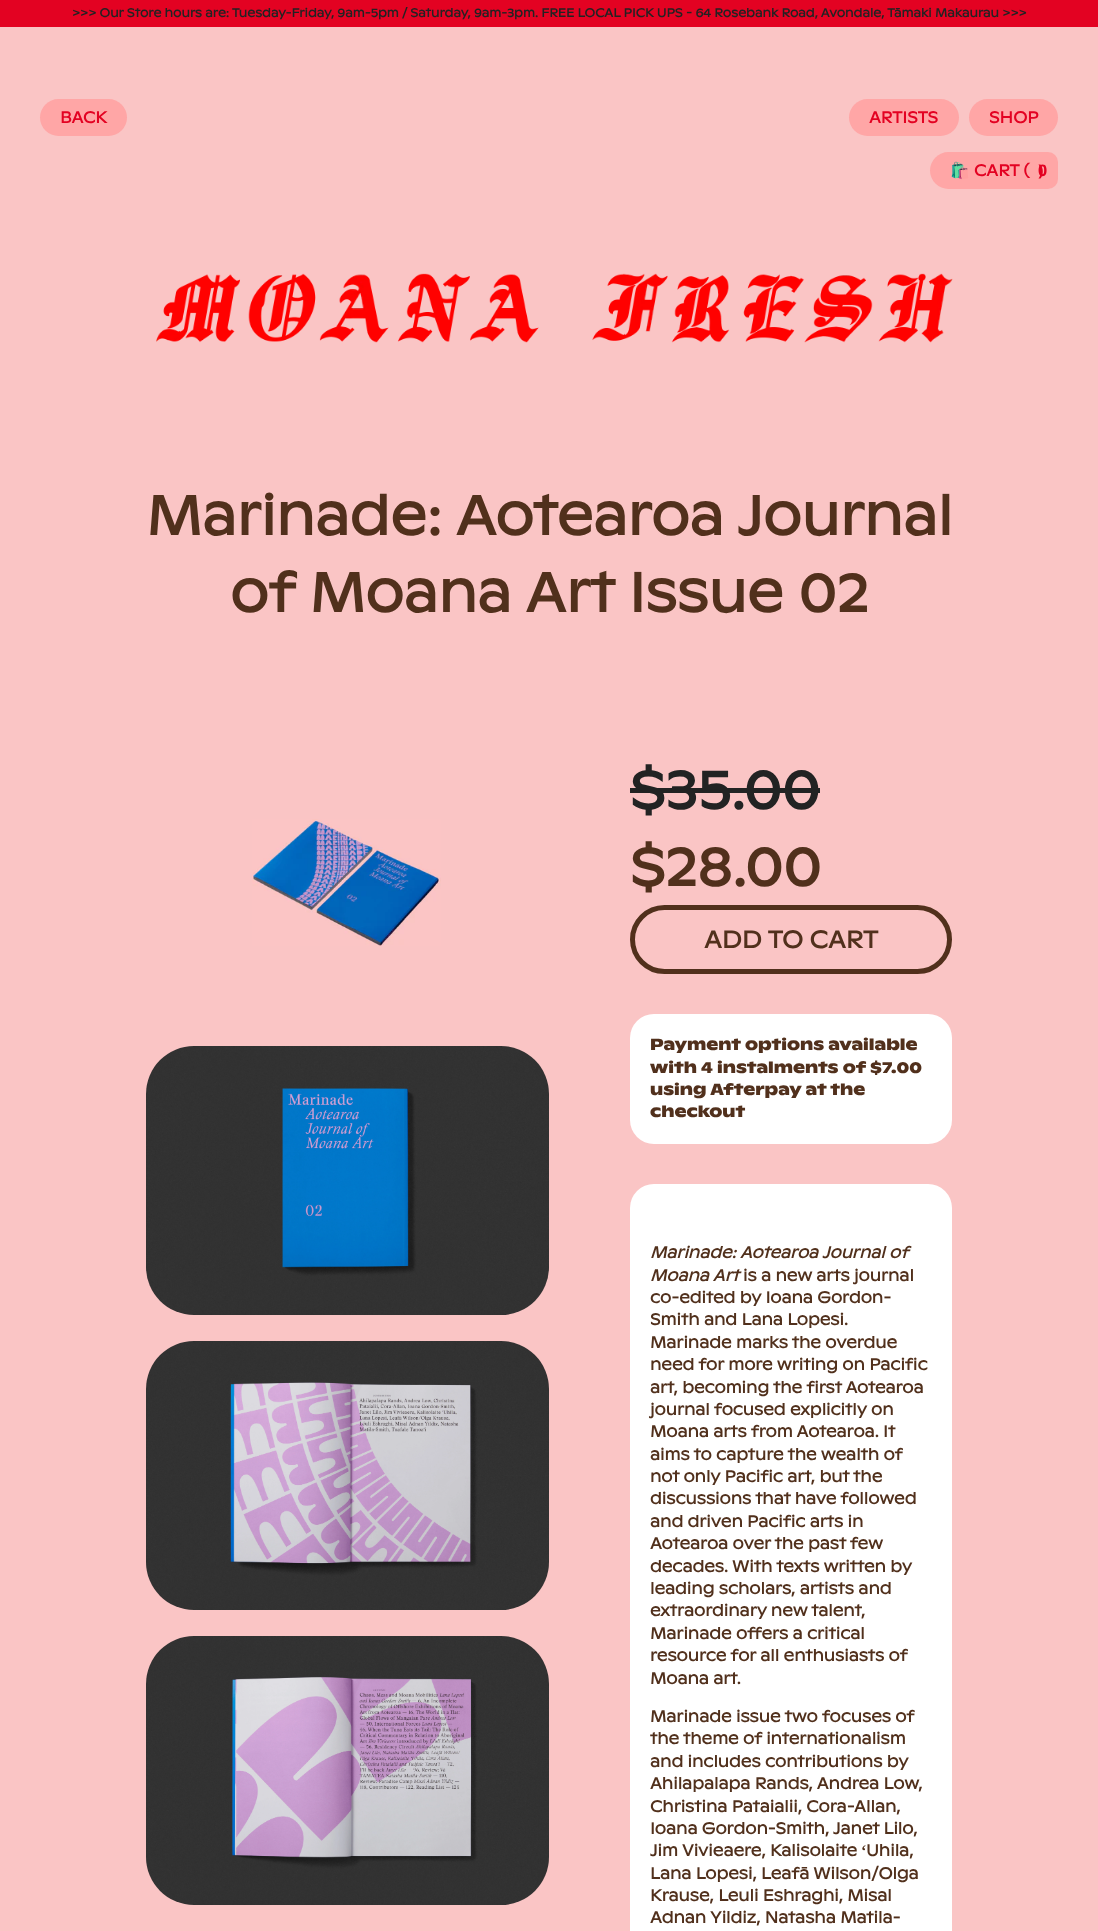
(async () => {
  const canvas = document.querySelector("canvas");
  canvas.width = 1098;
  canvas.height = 1931;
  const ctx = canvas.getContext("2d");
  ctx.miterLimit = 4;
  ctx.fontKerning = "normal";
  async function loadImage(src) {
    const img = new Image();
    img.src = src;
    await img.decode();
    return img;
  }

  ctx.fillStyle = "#fac5c5";
  ctx.fillRect(0, 0, 1098, 1931);
  ctx.fillStyle = "#e30222";
  ctx.fillRect(0, 0, 1098, 27);
  ctx.fillStyle = "#ffa6a6";
  ctx.beginPath();
  ctx.roundRect(40, 99, 87, 37, 18.5);
  ctx.fill();
  ctx.beginPath();
  ctx.roundRect(849, 99, 110, 37, 18.5);
  ctx.fill();
  ctx.beginPath();
  ctx.roundRect(969, 99, 89, 37, 18.5);
  ctx.fill();
  ctx.beginPath();
  ctx.roundRect(930, 152, 94, 37, [18.5, 0, 0, 18.5]);
  ctx.fill();
  ctx.fillRect(1024, 152, 14, 37);
  ctx.beginPath();
  ctx.roundRect(1038, 152, 20, 37, [0, 10, 10, 0]);
  ctx.fill();
  ctx.drawImage(await loadImage("img/1.png"), 156, 273, 797, 70);
  ctx.drawImage(await loadImage("img/2.png"), 252, 819, 189, 127);
  ctx.drawImage(await loadImage("img/3.png"), 146, 1046, 403, 269);
  ctx.drawImage(await loadImage("img/4.png"), 146, 1341, 403, 269);
  ctx.drawImage(await loadImage("img/5.png"), 146, 1636, 403, 269);
  ctx.fillStyle = "#222323";
  ctx.fillRect(630, 788, 190, 5);
  ctx.beginPath();
  ctx.roundRect(632.5, 907.5, 317, 64, 32);
  ctx.strokeStyle = "#51301c";
  ctx.lineWidth = 5;
  ctx.stroke();
  ctx.fillStyle = "#ffffff";
  ctx.beginPath();
  ctx.roundRect(630, 1014, 322, 130, 24);
  ctx.fill();
  ctx.beginPath();
  ctx.roundRect(630, 1184, 322, 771, 24);
  ctx.fill();
  ctx.font = "bold 12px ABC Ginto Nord";
  ctx.fillStyle = "#222323";
  ctx.fillText(">>> Our Store hours are: Tuesday-Friday, 9am-5pm / Saturday, 9am-3pm. FREE LOCAL PICK UPS - 64 Rosebank Road, Avondale, Tāmaki Makaurau >>>", 72, 17);
  ctx.font = "bold 16px ABC Ginto Nord";
  ctx.fillStyle = "#e30222";
  for (const [text, x, y] of [
    ["BACK", 60, 123],
    ["ARTISTS", 869, 123],
    ["SHOP", 989, 123],
  ]) {
    ctx.fillText(text, x, y);
  }
  ctx.font = "bold 16px Noto Color Emoji";
  ctx.fillText("🛍️", 950, 176);
  ctx.font = "bold 16px ABC Ginto Nord";
  ctx.fillText("CART (", 974, 176);
  ctx.font = "bold 16px Noto Sans";
  ctx.fillText("0", 1038, 176);
  ctx.fillText(")", 1038, 176);
  ctx.font = "bold 55px ABC Ginto Nord";
  ctx.fillStyle = "#51301c";
  ctx.fillText("Marinade: Aotearoa Journal", 146, 535);
  ctx.fillText("of Moana Art Issue 02", 230, 612);
  ctx.fillStyle = "#222323";
  ctx.fillText("$35.00", 630, 809);
  ctx.fillStyle = "#51301c";
  ctx.fillText("$28.00", 630, 886);
  ctx.font = "bold 24px ABC Ginto Nord";
  ctx.fillText("ADD TO CART", 704, 948);
  ctx.font = "bold 16px 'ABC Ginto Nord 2'";
  for (const [text, x, y] of [
    ["Payment options available", 650, 1050],
    ["with 4 instalments of $7.00", 650, 1073],
    ["using Afterpay at the", 650, 1095],
    ["checkout", 650, 1117],
  ]) {
    ctx.fillText(text, x, y);
  }
  ctx.font = "italic bold 16px ABC Ginto Nord";
  ctx.fillText("Marinade: Aotearoa Journal of", 650, 1258);
  ctx.fillText("Moana Art", 650, 1281);
  ctx.font = "bold 16px ABC Ginto Nord";
  for (const [text, x, y] of [
    ["is a new arts journal", 743, 1281],
    ["co-edited by Ioana Gordon-", 650, 1303],
    ["Smith and Lana Lopesi.", 650, 1325],
    ["Marinade marks the overdue", 650, 1348],
    ["need for more writing on Pacific", 650, 1370],
    ["art, becoming the first Aotearoa", 650, 1393],
    ["journal focused explicitly on", 650, 1415],
    ["Moana arts from Aotearoa. It", 650, 1437],
    ["aims to capture the wealth of", 650, 1460],
    ["not only Pacific art, but the", 650, 1482],
    ["discussions that have followed", 650, 1504],
    ["and driven Pacific arts in", 650, 1527],
    ["Aotearoa over the past few", 650, 1549],
    ["decades. With texts written by", 650, 1572],
    ["leading scholars, artists and", 650, 1594],
    ["extraordinary new talent,", 650, 1616],
    ["Marinade offers a critical", 650, 1639],
    ["resource for all enthusiasts of", 650, 1661],
    ["Moana art.", 650, 1684],
    ["Marinade issue two focuses of", 650, 1722],
    ["the theme of internationalism", 650, 1744],
    ["and includes contributions by", 650, 1767],
    ["Ahilapalapa Rands, Andrea Low,", 650, 1789],
    ["Christina Pataialii, Cora-Allan,", 650, 1812],
    ["Ioana Gordon-Smith, Janet Lilo,", 650, 1834],
    ["Jim Vivieaere, Kalisolaite", 650, 1856],
  ]) {
    ctx.fillText(text, x, y);
  }
  ctx.font = "bold 16px Liberation Serif";
  ctx.fillText("ʻ", 861, 1856);
  ctx.font = "bold 16px ABC Ginto Nord";
  for (const [text, x, y] of [
    ["Uhila,", 866, 1856],
    ["Lana Lopesi, Leafā Wilson/Olga", 650, 1879],
    ["Krause, Leuli Eshraghi, Misal", 650, 1901],
    ["Adnan Yildiz, Natasha Matila-", 650, 1923],
  ]) {
    ctx.fillText(text, x, y);
  }
})();
